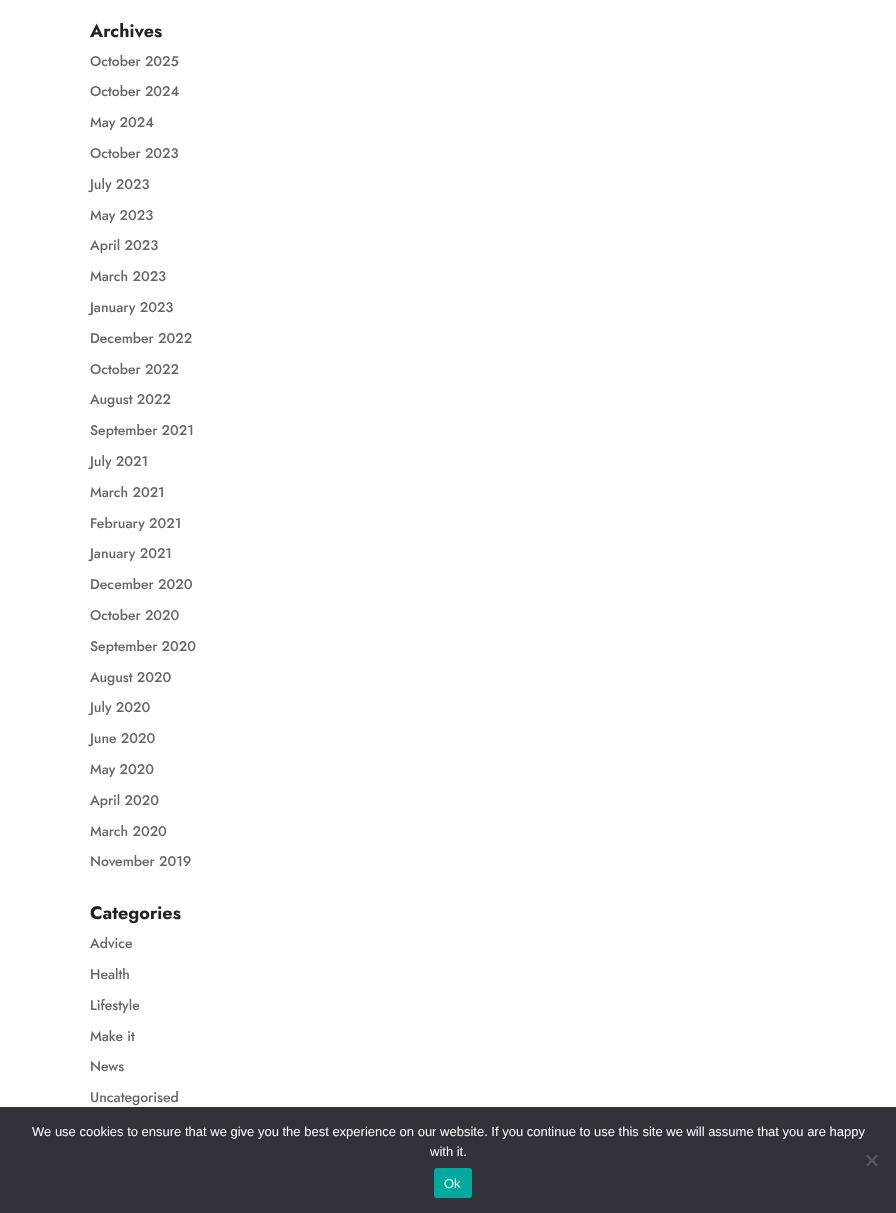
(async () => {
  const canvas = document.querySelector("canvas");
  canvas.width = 896;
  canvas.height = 1213;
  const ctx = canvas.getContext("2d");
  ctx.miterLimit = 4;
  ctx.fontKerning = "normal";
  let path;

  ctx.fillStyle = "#ffffff";
  ctx.fillRect(0, 0, 896, 1213);
  ctx.fillStyle = "#32323a";
  ctx.fillRect(0, 1107, 896, 106);
  ctx.fillStyle = "#59595d";
  path = new Path2D("M876.5 1154.5L878 1156L867.5 1166.5L866 1165Z");
  ctx.fill(path);
  path = new Path2D("M866 1156L867.5 1154.5L878 1165L876.5 1166.5Z");
  ctx.fill(path);
  ctx.fillStyle = "#00a99d";
  ctx.beginPath();
  ctx.roundRect(434, 1168, 38, 30, 3);
  ctx.fill();
  ctx.font = "bold 18px Jost";
  ctx.fillStyle = "#222222";
  ctx.fillText("Archives", 90, 37);
  ctx.font = "500 14px Jost";
  ctx.fillStyle = "#666666";
  for (const [text, x, y] of [
    ["October 2025", 90, 66],
    ["October 2024", 90, 96],
    ["May 2024", 90, 127],
    ["October 2023", 90, 158],
    ["July 2023", 90, 189],
    ["May 2023", 90, 220],
    ["April 2023", 90, 250],
    ["March 2023", 90, 281],
    ["January 2023", 90, 312],
    ["December 2022", 90, 343],
    ["October 2022", 90, 374],
    ["August 2022", 90, 404],
    ["September 2021", 90, 435],
    ["July 2021", 90, 466],
    ["March 2021", 90, 497],
    ["February 2021", 90, 528],
    ["January 2021", 90, 558],
    ["December 2020", 90, 589],
    ["October 2020", 90, 620],
    ["September 2020", 90, 651],
    ["August 2020", 90, 682],
    ["July 2020", 90, 712],
    ["June 2020", 90, 743],
    ["May 2020", 90, 774],
    ["April 2020", 90, 805],
    ["March 2020", 90, 836],
    ["November 2019", 90, 866],
  ]) {
    ctx.fillText(text, x, y);
  }
  ctx.font = "bold 18px Jost";
  ctx.fillStyle = "#222222";
  ctx.fillText("Categories", 90, 919);
  ctx.font = "500 14px Jost";
  ctx.fillStyle = "#666666";
  for (const [text, x, y] of [
    ["Advice", 90, 948],
    ["Health", 90, 979],
    ["Lifestyle", 90, 1010],
    ["Make it", 90, 1041],
    ["News", 90, 1071],
    ["Uncategorised", 90, 1102],
  ]) {
    ctx.fillText(text, x, y);
  }
  ctx.font = "13px Liberation Sans";
  ctx.fillStyle = "#ffffff";
  for (const [text, x, y] of [
    ["We use cookies to ensure that we give you the best experience on our website. If you continue to use this site we will assume that you are happy", 32, 1136],
    ["with it.", 430, 1156],
    ["Ok", 444, 1188],
  ]) {
    ctx.fillText(text, x, y);
  }
})();
